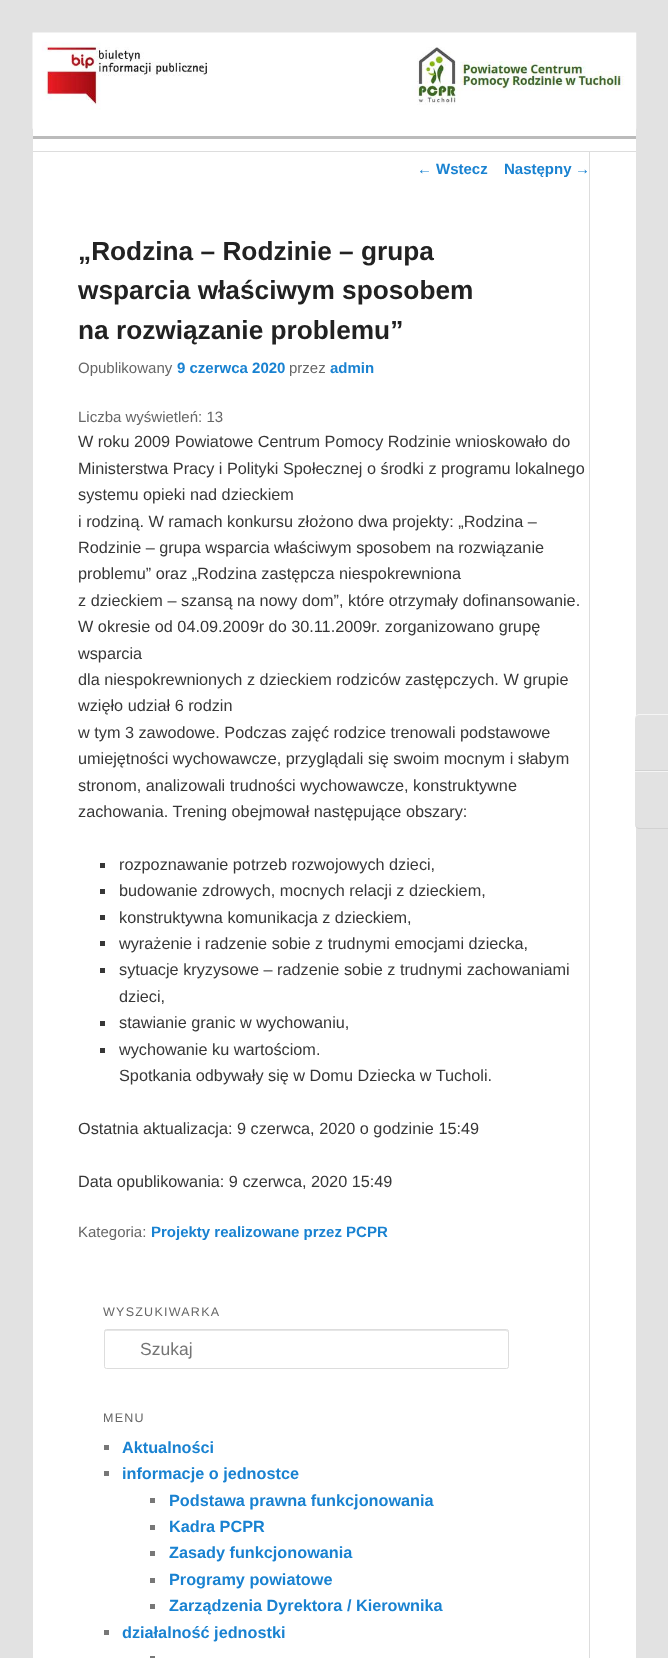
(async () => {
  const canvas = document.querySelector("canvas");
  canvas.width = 668;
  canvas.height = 1658;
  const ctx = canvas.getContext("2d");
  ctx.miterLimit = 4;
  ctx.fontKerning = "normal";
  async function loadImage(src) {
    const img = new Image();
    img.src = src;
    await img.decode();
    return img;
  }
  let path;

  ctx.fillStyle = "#e2e2e2";
  ctx.fillRect(0, 0, 668, 1658);
  ctx.fillStyle = "#ffffff";
  ctx.fillRect(33, 128, 603, 1530);
  ctx.drawImage(await loadImage("img/1.png"), 32, 32, 303, 97);
  ctx.drawImage(await loadImage("img/2.png"), 335, 32, 302, 97);
  for (const [x, y, w, h, color] of [
    [33, 136, 603, 3, "#bbbbbb"],
    [589, 151, 1, 1507, "#dddddd"],
    [33, 151, 603, 1, "#dddddd"],
    [100, 863, 5, 5, "#373737"],
    [100, 889, 5, 5, "#373737"],
    [100, 915, 5, 5, "#373737"],
    [100, 941, 5, 5, "#373737"],
    [100, 968, 5, 5, "#373737"],
    [100, 1021, 5, 5, "#373737"],
    [100, 1048, 5, 5, "#373737"],
  ]) {
    ctx.fillStyle = color;
    ctx.fillRect(x, y, w, h);
  }
  ctx.fillStyle = "#e6e6e6";
  path = new Path2D("M106 1331H506L508 1332V1331L507 1330H105V1332Z");
  ctx.fill(path);
  ctx.beginPath();
  ctx.roundRect(104.5, 1329.5, 404, 39, 2);
  ctx.strokeStyle = "#dddddd";
  ctx.stroke();
  for (const [x, y, w, h, color] of [
    [104, 1445, 5, 5, "#777777"],
    [104, 1471, 5, 5, "#777777"],
    [150, 1498, 5, 5, "#777777"],
    [150, 1525, 5, 5, "#777777"],
    [150, 1551, 5, 5, "#777777"],
    [150, 1578, 5, 5, "#777777"],
    [150, 1604, 5, 5, "#777777"],
    [104, 1630, 5, 5, "#777777"],
    [150, 1656, 5, 2, "#777777"],
  ]) {
    ctx.fillStyle = color;
    ctx.fillRect(x, y, w, h);
  }
  ctx.fillStyle = "#e2e2e2";
  path = new Path2D("M640 714H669V771H635V719C635 716 637 714 640 714Z");
  ctx.fill(path);
  ctx.fillStyle = "#f5f5f5";
  path = new Path2D("M640 714H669V715H640C637 715 635 717 635 719C635 716 637 714 640 714Z");
  ctx.fill(path);
  ctx.fillStyle = "#d2d2d2";
  ctx.fillRect(635, 770, 33, 1);
  ctx.fillStyle = "#e2e2e2";
  path = new Path2D("M635 771H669V829H640C637 829 635 827 635 824Z");
  ctx.fill(path);
  ctx.fillStyle = "#f5f5f5";
  ctx.fillRect(635, 771, 33, 1);
  ctx.fillStyle = "#d2d2d2";
  path = new Path2D("M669 829H638.5C636.5 828 635 826.5 635 824C635 826 637 828 640 828H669Z");
  ctx.fill(path);
  ctx.font = "15px Liberation Sans";
  ctx.fillStyle = "#1982d1";
  ctx.fillText("←", 417, 174);
  ctx.font = "bold 15px Liberation Sans";
  ctx.fillText("Wstecz", 436, 174);
  ctx.fillText("Następny", 504, 174);
  ctx.font = "15px Liberation Sans";
  ctx.fillText("→", 575, 174);
  ctx.font = "bold 26.25px Liberation Sans";
  ctx.fillStyle = "#222222";
  for (const [text, x, y] of [
    ["„Rodzina – Rodzinie – grupa", 78, 260],
    ["wsparcia właściwym sposobem", 78, 299],
    ["na rozwiązanie problemu”", 78, 339],
  ]) {
    ctx.fillText(text, x, y);
  }
  ctx.font = "15px Liberation Sans";
  ctx.fillStyle = "#666666";
  ctx.fillText("Opublikowany", 78, 373);
  ctx.font = "bold 15px Liberation Sans";
  ctx.fillStyle = "#1982d1";
  ctx.fillText("9 czerwca 2020", 177, 373);
  ctx.font = "15px Liberation Sans";
  ctx.fillStyle = "#666666";
  ctx.fillText("przez", 289, 373);
  ctx.font = "bold 15px Liberation Sans";
  ctx.fillStyle = "#1982d1";
  ctx.fillText("admin", 330, 373);
  ctx.font = "15px Liberation Sans";
  ctx.fillStyle = "#666666";
  ctx.fillText("Liczba wyświetleń: 13", 78, 422);
  ctx.font = "16.25px Liberation Sans";
  ctx.fillStyle = "#373737";
  for (const [text, x, y] of [
    ["W roku 2009 Powiatowe Centrum Pomocy Rodzinie wnioskowało do", 78, 447],
    ["Ministerstwa Pracy i Polityki Społecznej o środki z programu lokalnego", 78, 474],
    ["systemu opieki nad dzieckiem", 78, 500],
    ["i rodziną. W ramach konkursu złożono dwa projekty: „Rodzina –", 78, 527],
    ["Rodzinie – grupa wsparcia właściwym sposobem na rozwiązanie", 78, 553],
    ["problemu” oraz „Rodzina zastępcza niespokrewniona", 78, 579],
    ["z dzieckiem – szansą na nowy dom”, które otrzymały dofinansowanie.", 78, 606],
    ["W okresie od 04.09.2009r do 30.11.2009r. zorganizowano grupę", 78, 632],
    ["wsparcia", 78, 659],
    ["dla niespokrewnionych z dzieckiem rodziców zastępczych. W grupie", 78, 685],
    ["wzięło udział 6 rodzin", 78, 711],
    ["w tym 3 zawodowe. Podczas zajęć rodzice trenowali podstawowe", 78, 738],
    ["umiejętności wychowawcze, przyglądali się swoim mocnym i słabym", 78, 764],
    ["stronom, analizowali trudności wychowawcze, konstruktywne", 78, 791],
    ["zachowania. Trening obejmował następujące obszary:", 78, 817],
    ["rozpoznawanie potrzeb rozwojowych dzieci,", 119, 870],
    ["budowanie zdrowych, mocnych relacji z dzieckiem,", 119, 896],
    ["konstruktywna komunikacja z dzieckiem,", 119, 923],
    ["wyrażenie i radzenie sobie z trudnymi emocjami dziecka,", 119, 949],
    ["sytuacje kryzysowe – radzenie sobie z trudnymi zachowaniami", 119, 975],
    ["dzieci,", 119, 1002],
    ["stawianie granic w wychowaniu,", 119, 1028],
    ["wychowanie ku wartościom.", 119, 1055],
    ["Spotkania odbywały się w Domu Dziecka w Tucholi.", 119, 1081],
    ["Ostatnia aktualizacja: 9 czerwca, 2020 o godzinie 15:49", 78, 1134],
    ["Data opublikowania: 9 czerwca, 2020 15:49", 78, 1187],
  ]) {
    ctx.fillText(text, x, y);
  }
  ctx.font = "15px Liberation Sans";
  ctx.fillStyle = "#666666";
  ctx.fillText("Kategoria:", 78, 1237);
  ctx.font = "bold 15px Liberation Sans";
  ctx.fillStyle = "#1982d1";
  ctx.fillText("Projekty realizowane przez PCPR", 151, 1237);
  ctx.letterSpacing = "1.25px";
  ctx.font = "12.5px Liberation Sans";
  ctx.fillStyle = "#666666";
  ctx.fillText("WYSZUKIWARKA", 103, 1316);
  ctx.letterSpacing = "0px";
  ctx.font = "17.5px Liberation Sans";
  ctx.fillStyle = "#757575";
  ctx.fillText("Szukaj", 140, 1355);
  ctx.letterSpacing = "1.25px";
  ctx.font = "12.5px Liberation Sans";
  ctx.fillStyle = "#666666";
  ctx.fillText("MENU", 103, 1422);
  ctx.letterSpacing = "0px";
  ctx.font = "bold 16.25px Liberation Sans";
  ctx.fillStyle = "#1982d1";
  for (const [text, x, y] of [
    ["Aktualności", 122, 1453],
    ["informacje o jednostce", 122, 1479],
    ["Podstawa prawna funkcjonowania", 169, 1506],
    ["Kadra PCPR", 169, 1532],
    ["Zasady funkcjonowania", 169, 1558],
    ["Programy powiatowe", 169, 1585],
    ["Zarządzenia Dyrektora / Kierownika", 169, 1611],
    ["działalność jednostki", 122, 1638],
  ]) {
    ctx.fillText(text, x, y);
  }
})();
